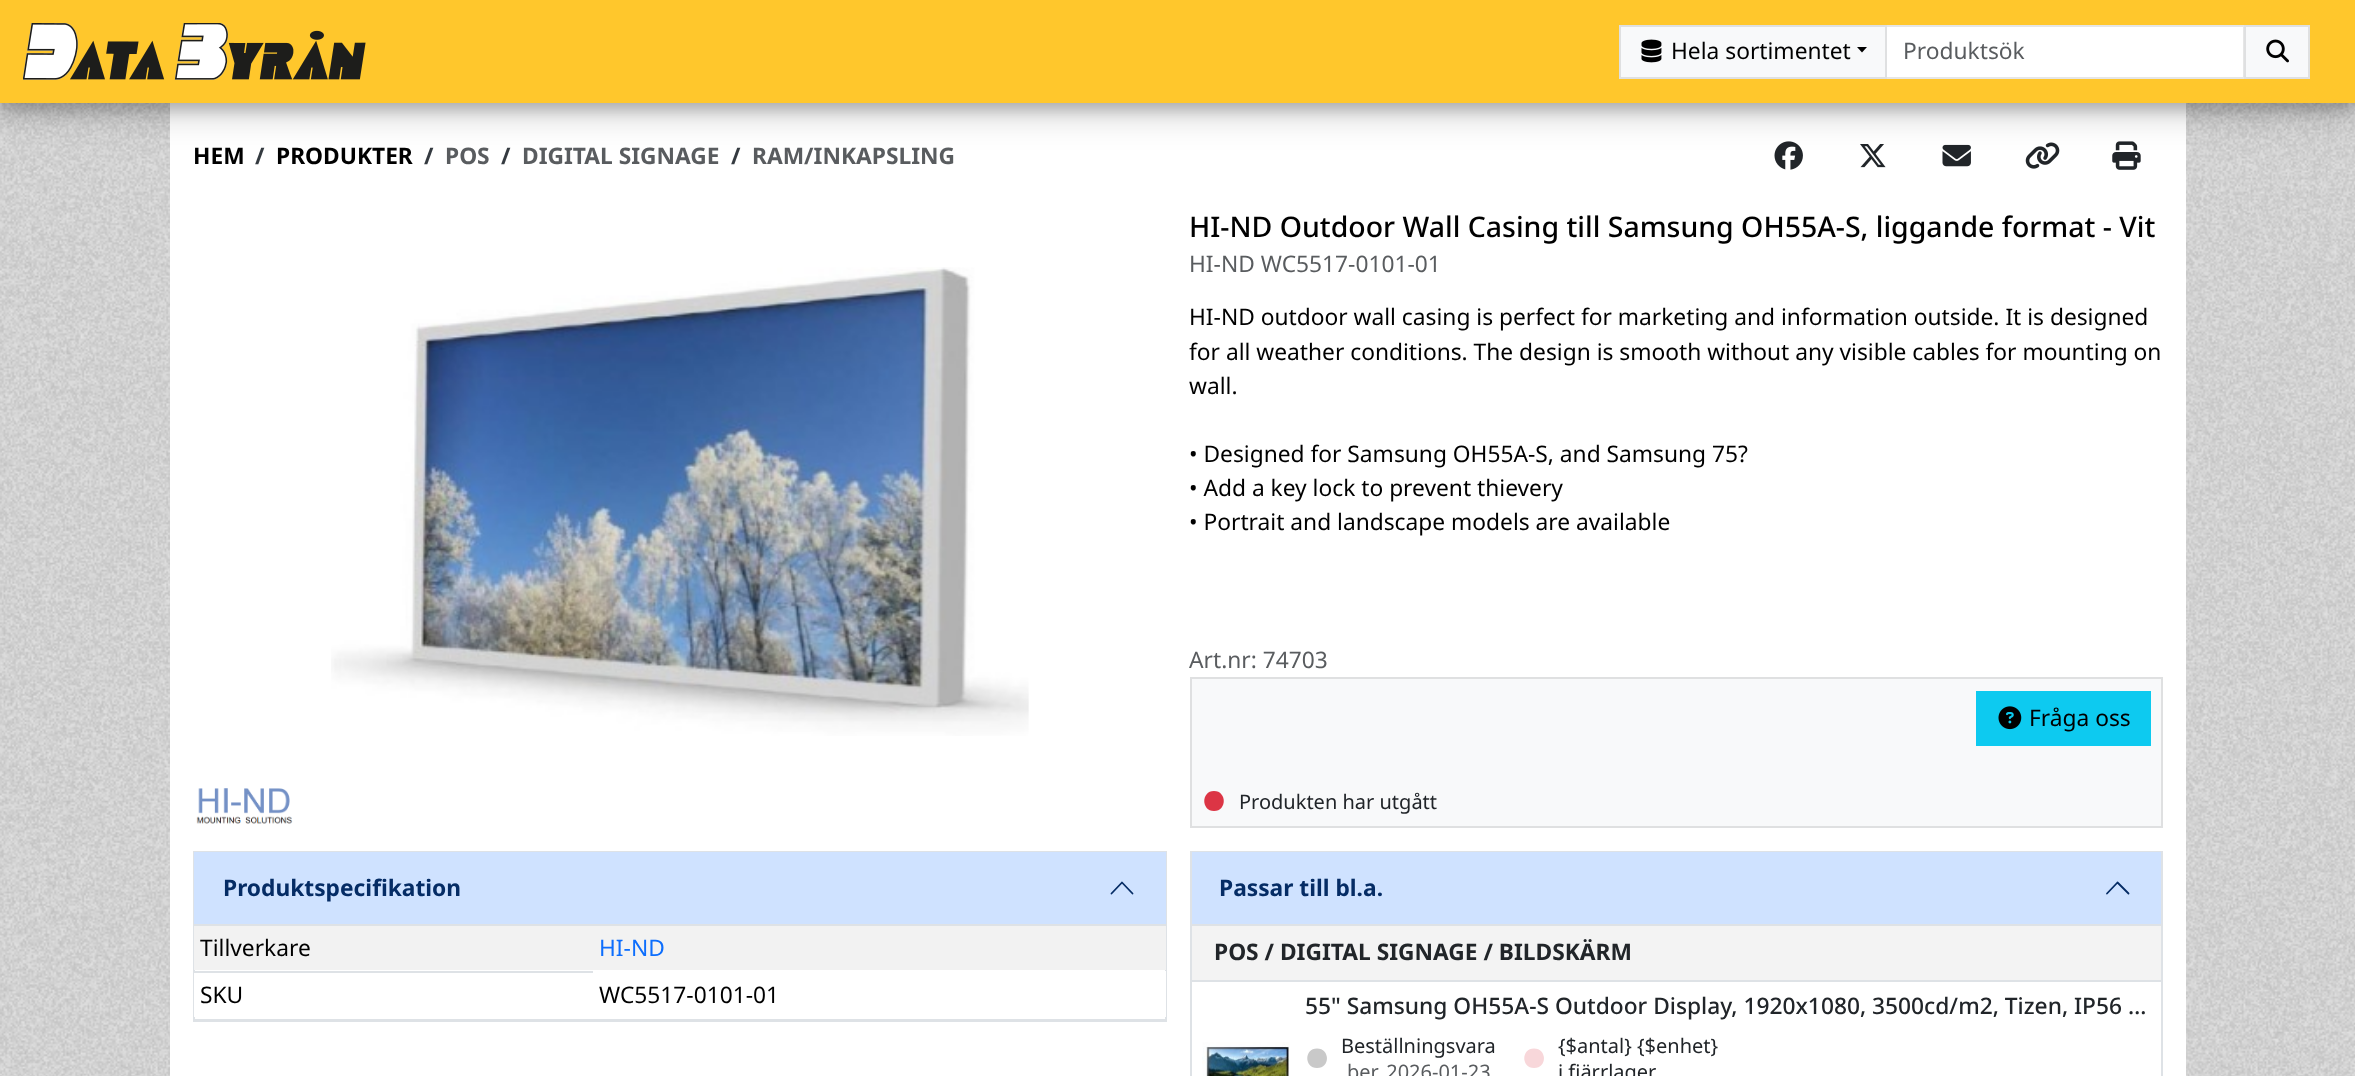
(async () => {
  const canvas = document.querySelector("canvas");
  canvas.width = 2355;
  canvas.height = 1076;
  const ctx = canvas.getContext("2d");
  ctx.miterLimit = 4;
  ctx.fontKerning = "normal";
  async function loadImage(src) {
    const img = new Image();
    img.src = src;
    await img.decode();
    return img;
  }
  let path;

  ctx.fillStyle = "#ffffff";
  ctx.fillRect(0, 0, 2355, 1076);
  ctx.drawImage(await loadImage("img/1.png"), 0, 103, 2355, 973);
  ctx.fillRect(170, 103, 2016, 973);
  ctx.drawImage(await loadImage("img/5.png"), 1774, 141, 29, 29);
  ctx.drawImage(await loadImage("img/6.png"), 1860, 144, 26, 24);
  ctx.drawImage(await loadImage("img/7.png"), 1942, 144, 29, 23);
  ctx.drawImage(await loadImage("img/8.png"), 2025, 142, 35, 27);
  ctx.drawImage(await loadImage("img/9.png"), 2112, 141, 29, 29);
  ctx.fillStyle = "rgba(0, 0, 0, 0.19)";
  ctx.filter = "blur(17.5px)";
  ctx.beginPath();
  ctx.rect(0, 11, 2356, 103);
  ctx.fill();
  ctx.filter = "none";
  ctx.fillStyle = "rgba(0, 0, 0, 0.2)";
  ctx.filter = "blur(7px)";
  ctx.beginPath();
  ctx.rect(0, 7, 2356, 103);
  ctx.fill();
  ctx.filter = "none";
  ctx.fillStyle = "#ffc72c";
  ctx.fillRect(0, 0, 2355, 103);
  ctx.drawImage(await loadImage("img/2.png"), 23, 23, 343, 57);
  ctx.fillStyle = "#ffffff";
  ctx.beginPath();
  ctx.rect(1886, 26, 358, 52);
  ctx.fill();
  ctx.strokeStyle = "#e6e6e6";
  ctx.lineWidth = 2;
  ctx.stroke();
  ctx.fillStyle = "#f8f9fa";
  ctx.beginPath();
  ctx.rect(1620, 26, 266, 52);
  ctx.fill();
  ctx.strokeStyle = "#dfe0e1";
  ctx.stroke();
  ctx.drawImage(await loadImage("img/3.png"), 1641, 39, 21, 24);
  ctx.fillStyle = "#000000";
  path = new Path2D("M1857 47H1867L1862 52.5Z");
  ctx.fill(path);
  ctx.fillStyle = "#f8f9fa";
  ctx.beginPath();
  ctx.rect(2245, 26, 64, 52);
  ctx.fill();
  ctx.stroke();
  ctx.drawImage(await loadImage("img/4.png"), 2266, 39, 23, 24);
  ctx.drawImage(await loadImage("img/10.png"), 331, 267, 698, 469);
  ctx.drawImage(await loadImage("img/11.png"), 196, 788, 97, 36);
  ctx.beginPath();
  ctx.rect(1191, 678, 971, 149);
  ctx.fill();
  ctx.stroke();
  ctx.fillStyle = "#0dcaf0";
  ctx.fillRect(1976, 691, 175, 55);
  ctx.drawImage(await loadImage("img/12.png"), 1998, 706, 24, 24);
  ctx.fillStyle = "#dc3545";
  path = new Path2D("M1214 811C1227 811 1227 791 1214 791C1201 791 1201 811 1214 811Z");
  ctx.fill(path);
  ctx.strokeStyle = "#dee2e6";
  ctx.strokeRect(194, 852, 972, 169);
  ctx.fillStyle = "#cfe2ff";
  ctx.fillRect(194, 852, 972, 72);
  ctx.fillStyle = "#dee2e6";
  ctx.fillRect(194, 924, 972, 2);
  path = new Path2D("M1132.5 893.5L1122 882.5L1111.5 893.5");
  ctx.strokeStyle = "#052c65";
  ctx.lineWidth = 1.8;
  ctx.lineCap = "round";
  ctx.lineJoin = "round";
  ctx.stroke(path);
  for (const [x, y, w, h, color] of [
    [194, 926, 972, 44, "#f2f2f2"],
    [194, 971, 399, 2, "#dee2e6"],
    [194, 973, 1, 44, "#ffffff"],
    [194, 1019, 972, 1, "#dee2e6"],
    [1165, 971, 1, 46, "#ffffff"],
  ]) {
    ctx.fillStyle = color;
    ctx.fillRect(x, y, w, h);
  }
  ctx.strokeStyle = "#dee2e6";
  ctx.lineWidth = 2;
  ctx.lineJoin = "miter";
  ctx.strokeRect(1191, 852, 971, 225);
  ctx.fillStyle = "#cfe2ff";
  ctx.fillRect(1192, 852, 969, 72);
  ctx.fillStyle = "#dee2e6";
  ctx.fillRect(1192, 924, 969, 2);
  path = new Path2D("M2128.5 893.5L2117.5 882.5L2107 893.5");
  ctx.strokeStyle = "#052c65";
  ctx.lineWidth = 1.8;
  ctx.lineJoin = "round";
  ctx.stroke(path);
  ctx.fillStyle = "#f3f3f3";
  ctx.fillRect(1192, 926, 969, 54);
  ctx.fillStyle = "#dee2e6";
  ctx.fillRect(1192, 980, 969, 2);
  ctx.drawImage(await loadImage("img/13.png"), 1202, 1042, 88, 34);
  ctx.fillStyle = "#c9c9c9";
  path = new Path2D("M1317 1068C1330.5 1068 1330 1048.5 1317 1048.5C1304 1048.5 1304 1068 1317 1068Z");
  ctx.fill(path);
  ctx.fillStyle = "#f8d7da";
  path = new Path2D("M1534 1068C1547.5 1068 1547 1048.5 1534 1048.5C1521 1048.5 1521 1068 1534 1068Z");
  ctx.fill(path);
  ctx.font = "22.75px Noto Sans";
  ctx.fillStyle = "#000000";
  ctx.fillText("Hela sortimentet", 1671, 59);
  ctx.fillStyle = "#595c5f";
  ctx.fillText("Produktsök", 1903, 59);
  ctx.font = "bold 22.75px Noto Sans";
  ctx.fillStyle = "#000000";
  ctx.fillText("HEM", 193, 164);
  ctx.fillStyle = "#343a40";
  ctx.fillText("/", 255, 164);
  ctx.fillStyle = "#000000";
  ctx.fillText("PRODUKTER", 276, 164);
  ctx.fillStyle = "#343a40";
  ctx.fillText("/", 424, 164);
  ctx.fillStyle = "#595c5f";
  ctx.fillText("POS", 445, 164);
  ctx.fillStyle = "#343a40";
  ctx.fillText("/", 501, 164);
  ctx.fillStyle = "#595c5f";
  ctx.fillText("DIGITAL SIGNAGE", 522, 164);
  ctx.fillStyle = "#343a40";
  ctx.fillText("/", 731, 164);
  ctx.fillStyle = "#595c5f";
  ctx.fillText("RAM/INKAPSLING", 752, 164);
  ctx.font = "500 28.45px Noto Sans";
  ctx.fillStyle = "#000000";
  ctx.fillText("HI-ND Outdoor Wall Casing till Samsung OH55A-S, liggande format - Vit", 1189, 237);
  ctx.font = "22.75px Noto Sans";
  ctx.fillStyle = "#595c5f";
  ctx.fillText("HI-ND WC5517-0101-01", 1189, 272);
  ctx.fillStyle = "#000000";
  for (const [text, x, y] of [
    ["HI-ND outdoor wall casing is perfect for marketing and information outside. It is designed", 1189, 325],
    ["for all weather conditions. The design is smooth without any visible cables for mounting on", 1189, 360],
    ["wall.", 1189, 394],
    ["• Designed for Samsung OH55A-S, and Samsung 75?", 1189, 462],
    ["• Add a key lock to prevent thievery", 1189, 496],
    ["• Portrait and landscape models are available", 1189, 530],
  ]) {
    ctx.fillText(text, x, y);
  }
  ctx.fillStyle = "#595c5f";
  ctx.fillText("Art.nr: 74703", 1189, 668);
  ctx.fillStyle = "#000000";
  ctx.fillText("Fråga oss", 2029, 726);
  ctx.font = "20px Noto Sans";
  ctx.fillStyle = "#212529";
  ctx.fillText("Produkten har utgått", 1239, 809);
  ctx.font = "bold 22.75px Noto Sans";
  ctx.fillStyle = "#052c65";
  ctx.fillText("Produktspecifikation", 223, 896);
  ctx.font = "22.75px Noto Sans";
  ctx.fillStyle = "#000000";
  ctx.fillText("Tillverkare", 200, 956);
  ctx.fillStyle = "#0d6efd";
  ctx.fillText("HI-ND", 599, 956);
  ctx.fillStyle = "#000000";
  ctx.fillText("SKU", 200, 1003);
  ctx.fillText("WC5517-0101-01", 599, 1003);
  ctx.font = "bold 22.75px Noto Sans";
  ctx.fillStyle = "#052c65";
  ctx.fillText("Passar till bl.a.", 1219, 896);
  ctx.fillStyle = "#212529";
  ctx.fillText("POS / DIGITAL SIGNAGE / BILDSKÄRM", 1214, 960);
  ctx.font = "500 22.75px Noto Sans";
  ctx.fillText("55\" Samsung OH55A-S Outdoor Display, 1920x1080, 3500cd/m2, Tizen, IP56 …", 1305, 1014);
  ctx.font = "20px Noto Sans";
  ctx.fillText("Beställningsvara", 1341, 1053);
  ctx.fillStyle = "#595c5f";
  ctx.fillText("ber. 2026-01-23", 1347, 1079);
  ctx.fillStyle = "#212529";
  ctx.fillText("{$antal} {$enhet}", 1558, 1053);
  ctx.fillText("i fjärrlager", 1558, 1079);
})();
